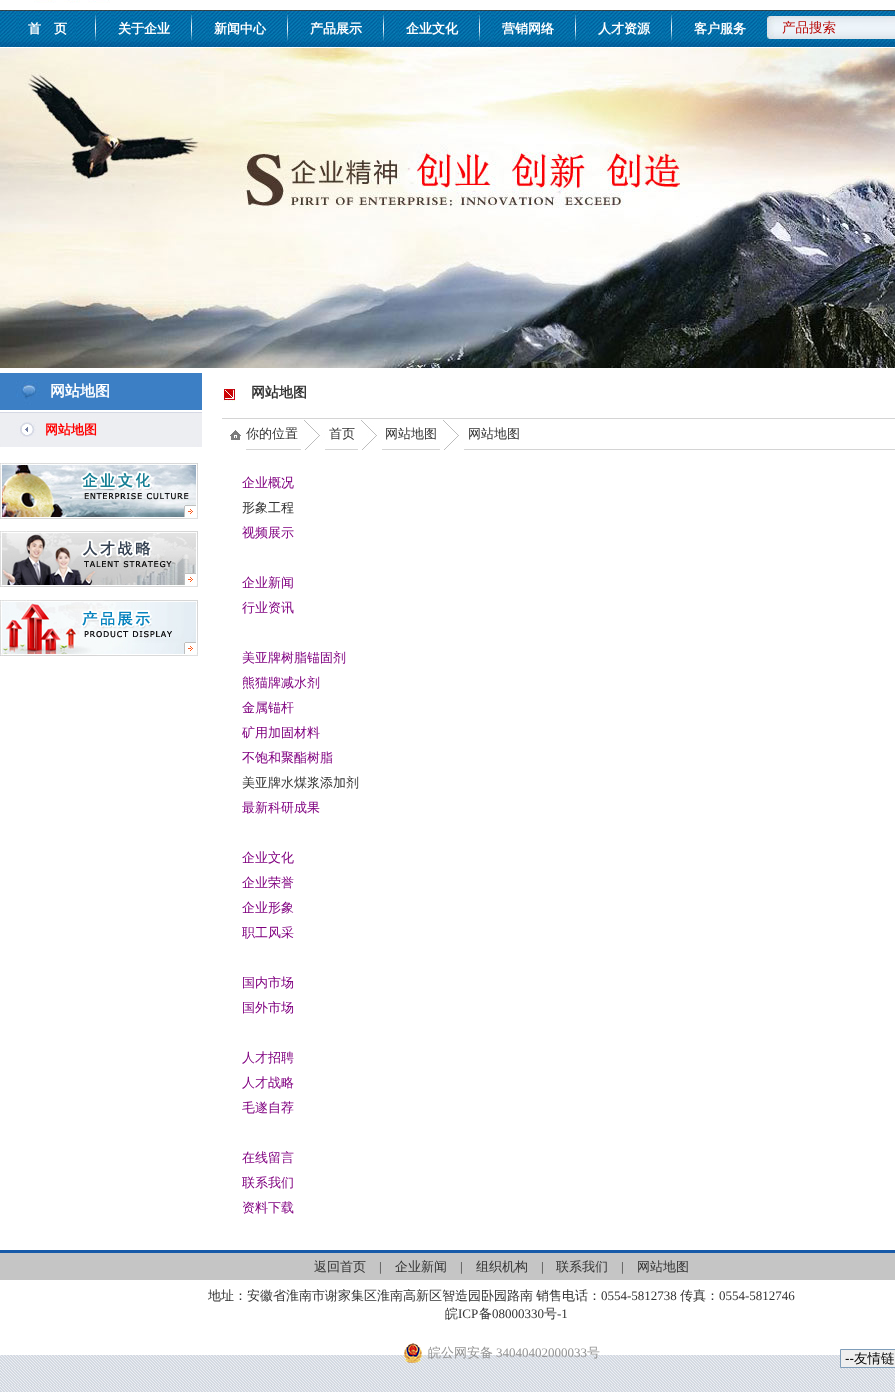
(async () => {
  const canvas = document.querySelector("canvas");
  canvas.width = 895;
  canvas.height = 1392;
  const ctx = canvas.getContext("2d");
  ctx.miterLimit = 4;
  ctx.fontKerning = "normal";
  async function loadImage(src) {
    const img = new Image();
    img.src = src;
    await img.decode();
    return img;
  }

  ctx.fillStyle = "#ffffff";
  ctx.fillRect(0, 0, 895, 1392);
  ctx.drawImage(await loadImage("img/1.png"), 0, 1355, 895, 37);
  ctx.drawImage(await loadImage("img/2.png"), 34, 0, 76, 3);
  ctx.drawImage(await loadImage("img/3.png"), 0, 10, 895, 37);
  ctx.drawImage(await loadImage("img/4.png"), 95, 10, 1, 36);
  ctx.drawImage(await loadImage("img/5.png"), 191, 11, 1, 36);
  ctx.drawImage(await loadImage("img/6.png"), 287, 10, 1, 37);
  ctx.drawImage(await loadImage("img/5.png"), 383, 11, 1, 36);
  ctx.drawImage(await loadImage("img/4.png"), 479, 10, 1, 36);
  ctx.drawImage(await loadImage("img/6.png"), 575, 10, 1, 37);
  ctx.drawImage(await loadImage("img/6.png"), 671, 10, 1, 37);
  ctx.drawImage(await loadImage("img/7.png"), 767, 16, 128, 23);
  ctx.drawImage(await loadImage("img/8.png"), 0, 48, 895, 320);
  ctx.drawImage(await loadImage("img/9.png"), 0, 373, 202, 37);
  ctx.drawImage(await loadImage("img/10.png"), 0, 412, 202, 35);
  ctx.drawImage(await loadImage("img/11.png"), 0, 462, 198, 57);
  ctx.drawImage(await loadImage("img/12.png"), 0, 531, 198, 56);
  ctx.drawImage(await loadImage("img/13.png"), 0, 600, 198, 56);
  ctx.drawImage(await loadImage("img/14.png"), 222, 387, 15, 15);
  ctx.fillStyle = "#d4d4d4";
  ctx.fillRect(222, 418, 673, 1);
  ctx.fillRect(246, 449, 649, 1);
  ctx.drawImage(await loadImage("img/15.png"), 222, 430, 24, 20);
  ctx.drawImage(await loadImage("img/16.png"), 301, 420, 24, 30);
  ctx.drawImage(await loadImage("img/16.png"), 358, 420, 24, 30);
  ctx.drawImage(await loadImage("img/16.png"), 440, 420, 24, 30);
  ctx.drawImage(await loadImage("img/17.png"), 0, 1250, 895, 30);
  ctx.drawImage(await loadImage("img/18.png"), 404, 1343, 18, 20);
  ctx.fillStyle = "#efefef";
  ctx.beginPath();
  ctx.rect(840.5, 1349.5, 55, 18);
  ctx.fill();
  ctx.strokeStyle = "#7f9db9";
  ctx.stroke();
  ctx.font = "bold 13px WenQuanYi Zen Hei";
  ctx.fillStyle = "#ffffff";
  for (const [text, x, y] of [
    ["首　页", 28, 33],
    ["关于企业", 118, 33],
    ["新闻中心", 214, 33],
    ["产品展示", 310, 33],
    ["企业文化", 406, 33],
    ["营销网络", 502, 33],
    ["人才资源", 598, 33],
    ["客户服务", 694, 33],
  ]) {
    ctx.fillText(text, x, y);
  }
  ctx.font = "500 13.5px WenQuanYi Zen Hei";
  ctx.fillStyle = "#b70805";
  ctx.fillText("产品搜索", 782, 32);
  ctx.font = "bold 15px WenQuanYi Zen Hei";
  ctx.fillStyle = "#ffffff";
  ctx.fillText("网站地图", 50, 396);
  ctx.font = "bold 13px WenQuanYi Zen Hei";
  ctx.fillStyle = "#ff0000";
  ctx.fillText("网站地图", 45, 434);
  ctx.font = "bold 14px WenQuanYi Zen Hei";
  ctx.fillStyle = "#333333";
  ctx.fillText("网站地图", 251, 397);
  ctx.font = "500 13px WenQuanYi Zen Hei";
  for (const [text, x, y] of [
    ["你的位置", 246, 438],
    ["首页", 329, 438],
    ["网站地图", 385, 438],
    ["网站地图", 468, 438],
  ]) {
    ctx.fillText(text, x, y);
  }
  ctx.fillStyle = "#800080";
  ctx.fillText("企业概况", 242, 487);
  ctx.fillStyle = "#333333";
  ctx.fillText("形象工程", 242, 512);
  ctx.fillStyle = "#800080";
  for (const [text, x, y] of [
    ["视频展示", 242, 537],
    ["企业新闻", 242, 587],
    ["行业资讯", 242, 612],
    ["美亚牌树脂锚固剂", 242, 662],
    ["熊猫牌减水剂", 242, 687],
    ["金属锚杆", 242, 712],
    ["矿用加固材料", 242, 737],
    ["不饱和聚酯树脂", 242, 762],
  ]) {
    ctx.fillText(text, x, y);
  }
  ctx.fillStyle = "#333333";
  ctx.fillText("美亚牌水煤浆添加剂", 242, 787);
  ctx.fillStyle = "#800080";
  for (const [text, x, y] of [
    ["最新科研成果", 242, 812],
    ["企业文化", 242, 862],
    ["企业荣誉", 242, 887],
    ["企业形象", 242, 912],
    ["职工风采", 242, 937],
    ["国内市场", 242, 987],
    ["国外市场", 242, 1012],
    ["人才招聘", 242, 1062],
    ["人才战略", 242, 1087],
    ["毛遂自荐", 242, 1112],
    ["在线留言", 242, 1162],
    ["联系我们", 242, 1187],
    ["资料下载", 242, 1212],
  ]) {
    ctx.fillText(text, x, y);
  }
  ctx.fillStyle = "#333333";
  ctx.fillText("返回首页", 314, 1271);
  ctx.font = "13px Liberation Serif";
  ctx.fillText("|", 379, 1271);
  ctx.font = "500 13px WenQuanYi Zen Hei";
  ctx.fillText("企业新闻", 395, 1271);
  ctx.font = "13px Liberation Serif";
  ctx.fillText("|", 460, 1271);
  ctx.font = "500 13px WenQuanYi Zen Hei";
  ctx.fillText("组织机构", 476, 1271);
  ctx.font = "13px Liberation Serif";
  ctx.fillText("|", 541, 1271);
  ctx.font = "500 13px WenQuanYi Zen Hei";
  ctx.fillText("联系我们", 556, 1271);
  ctx.font = "13px Liberation Serif";
  ctx.fillText("|", 621, 1271);
  ctx.font = "500 13px WenQuanYi Zen Hei";
  for (const [text, x, y] of [
    ["网站地图", 637, 1271],
    ["地址：安徽省淮南市谢家集区淮南高新区智造园卧园路南", 208, 1300],
    ["销售电话：", 536, 1300],
  ]) {
    ctx.fillText(text, x, y);
  }
  ctx.font = "13px Liberation Serif";
  ctx.fillText("0554-5812738", 601, 1300);
  ctx.font = "500 13px WenQuanYi Zen Hei";
  ctx.fillText("传真：", 680, 1300);
  ctx.font = "13px Liberation Serif";
  ctx.fillText("0554-5812746", 719, 1300);
  ctx.font = "500 13px WenQuanYi Zen Hei";
  ctx.fillText("皖", 445, 1318);
  ctx.font = "13px Liberation Serif";
  ctx.fillText("ICP", 458, 1318);
  ctx.font = "500 13px WenQuanYi Zen Hei";
  ctx.fillText("备", 479, 1318);
  ctx.font = "13px Liberation Serif";
  ctx.fillText("08000330", 492, 1318);
  ctx.font = "500 13px WenQuanYi Zen Hei";
  ctx.fillText("号", 544, 1318);
  ctx.font = "13px Liberation Serif";
  ctx.fillText("-1", 557, 1318);
  ctx.font = "500 13px WenQuanYi Zen Hei";
  ctx.fillStyle = "#939393";
  ctx.fillText("皖公网安备", 428, 1357);
  ctx.font = "13px Liberation Serif";
  ctx.fillText("34040402000033", 496, 1357);
  ctx.font = "500 13px WenQuanYi Zen Hei";
  ctx.fillText("号", 587, 1357);
  ctx.font = "13.5px Liberation Sans";
  ctx.fillStyle = "#000000";
  ctx.fillText("--", 845, 1363);
  ctx.font = "500 13.5px WenQuanYi Zen Hei";
  ctx.fillText("友情链", 854, 1363);
})();
